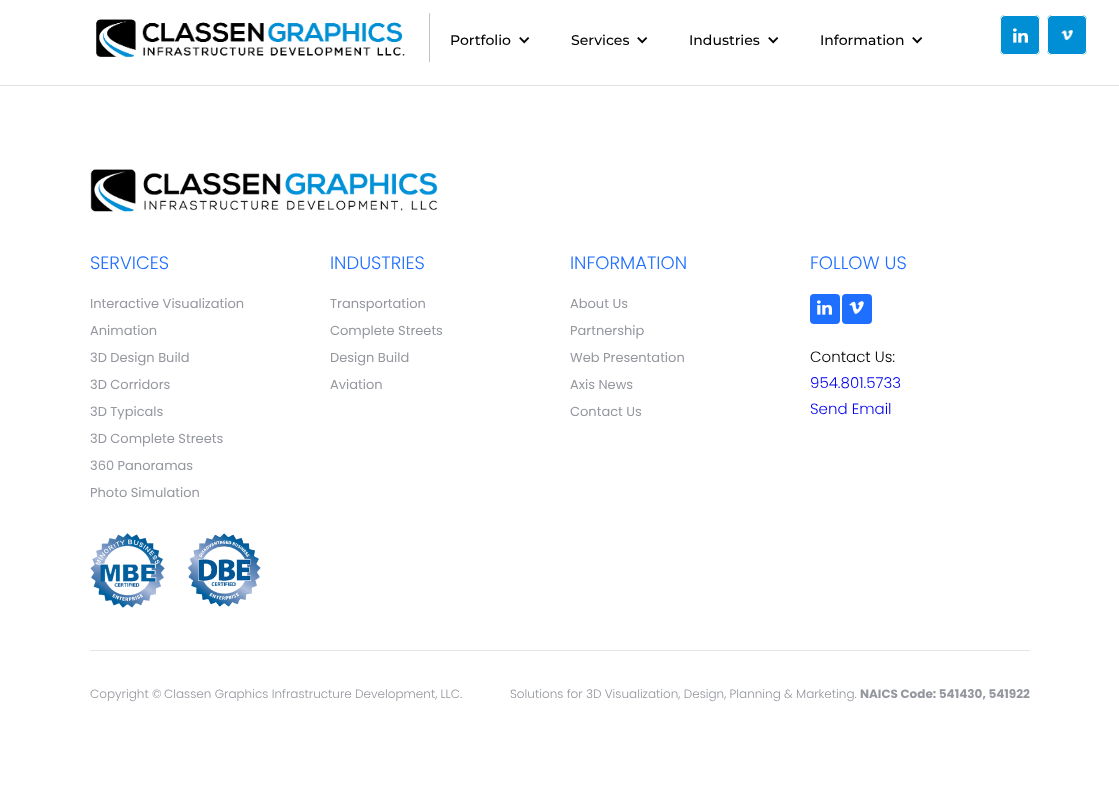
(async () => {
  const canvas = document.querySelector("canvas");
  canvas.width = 1119;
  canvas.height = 787;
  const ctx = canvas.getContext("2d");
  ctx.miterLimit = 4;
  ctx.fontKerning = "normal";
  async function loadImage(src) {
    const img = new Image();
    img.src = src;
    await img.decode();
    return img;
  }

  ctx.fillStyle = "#ffffff";
  ctx.fillRect(0, 0, 1119, 787);
  ctx.fillStyle = "#c2c2c2";
  ctx.fillRect(429, 13, 1, 49);
  ctx.drawImage(await loadImage("img/1.png"), 96, 19, 309, 38);
  ctx.drawImage(await loadImage("img/2.png"), 519, 37, 11, 7);
  ctx.drawImage(await loadImage("img/2.png"), 637, 37, 11, 7);
  ctx.drawImage(await loadImage("img/2.png"), 768, 37, 11, 7);
  ctx.drawImage(await loadImage("img/2.png"), 912, 37, 11, 7);
  ctx.fillStyle = "#008fd5";
  ctx.beginPath();
  ctx.roundRect(1000, 15, 40, 40, 5);
  ctx.fill();
  ctx.drawImage(await loadImage("img/3.png"), 1013, 28, 15, 15);
  ctx.beginPath();
  ctx.roundRect(1000.5, 15.5, 39, 39, 4.5);
  ctx.strokeStyle = "#ffffff";
  ctx.stroke();
  ctx.beginPath();
  ctx.roundRect(1047, 15, 40, 40, 5);
  ctx.fill();
  ctx.drawImage(await loadImage("img/4.png"), 1061, 30, 12, 11);
  ctx.beginPath();
  ctx.roundRect(1047.5, 15.5, 39, 39, 4.5);
  ctx.stroke();
  ctx.fillStyle = "#e2e2e2";
  ctx.fillRect(0, 85, 1119, 1);
  ctx.drawImage(await loadImage("img/5.png"), 90, 169, 348, 43);
  ctx.fillStyle = "#1f6fff";
  ctx.beginPath();
  ctx.roundRect(810, 294, 30, 30, 4);
  ctx.fill();
  ctx.drawImage(await loadImage("img/6.png"), 817, 300, 15, 15);
  ctx.beginPath();
  ctx.roundRect(842, 294, 30, 30, 4);
  ctx.fill();
  ctx.drawImage(await loadImage("img/7.png"), 849, 301, 15, 13);
  ctx.drawImage(await loadImage("img/8.png"), 90, 533, 75, 75);
  ctx.drawImage(await loadImage("img/9.png"), 187, 533, 74, 74);
  ctx.fillStyle = "#e6e6e6";
  ctx.fillRect(90, 650, 940, 1);
  ctx.font = "500 14px Montserrat";
  ctx.fillStyle = "#000000";
  for (const [text, x, y] of [
    ["Portfolio", 450, 45],
    ["Services", 571, 45],
    ["Industries", 689, 45],
    ["Information", 820, 45],
  ]) {
    ctx.fillText(text, x, y);
  }
  ctx.font = "300 18px Poppins";
  ctx.fillStyle = "#1f6fff";
  ctx.fillText("SERVICES", 90, 269);
  ctx.font = "13px Poppins";
  ctx.fillStyle = "#94979e";
  for (const [text, x, y] of [
    ["Interactive Visualization", 90, 308],
    ["Animation", 90, 335],
    ["3D Design Build", 90, 362],
    ["3D Corridors", 90, 389],
    ["3D Typicals", 90, 416],
    ["3D Complete Streets", 90, 443],
    ["360 Panoramas", 90, 470],
    ["Photo Simulation", 90, 497],
  ]) {
    ctx.fillText(text, x, y);
  }
  ctx.font = "300 18px Poppins";
  ctx.fillStyle = "#1f6fff";
  ctx.fillText("INDUSTRIES", 330, 269);
  ctx.font = "13px Poppins";
  ctx.fillStyle = "#94979e";
  for (const [text, x, y] of [
    ["Transportation", 330, 308],
    ["Complete Streets", 330, 335],
    ["Design Build", 330, 362],
    ["Aviation", 330, 389],
  ]) {
    ctx.fillText(text, x, y);
  }
  ctx.font = "300 18px Poppins";
  ctx.fillStyle = "#1f6fff";
  ctx.fillText("INFORMATION", 570, 269);
  ctx.font = "13px Poppins";
  ctx.fillStyle = "#94979e";
  for (const [text, x, y] of [
    ["About Us", 570, 308],
    ["Partnership", 570, 335],
    ["Web Presentation", 570, 362],
    ["Axis News", 570, 389],
    ["Contact Us", 570, 416],
  ]) {
    ctx.fillText(text, x, y);
  }
  ctx.font = "300 18px Poppins";
  ctx.fillStyle = "#1f6fff";
  ctx.fillText("FOLLOW US", 810, 269);
  ctx.font = "300 15px Poppins";
  ctx.fillStyle = "#000000";
  ctx.fillText("Contact Us:", 810, 362);
  ctx.fillStyle = "#0000ee";
  ctx.fillText("954.801.5733", 810, 388);
  ctx.fillText("Send Email", 810, 414);
  ctx.font = "300 12px Poppins";
  ctx.fillStyle = "#94979e";
  for (const [text, x, y] of [
    ["Copyright ©", 90, 698],
    ["Classen Graphics Infrastructure Development, LLC.", 164, 698],
    ["Solutions for 3D Visualization, Design, Planning & Marketing.", 510, 698],
  ]) {
    ctx.fillText(text, x, y);
  }
  ctx.font = "bold 12px Poppins";
  ctx.fillText("NAICS Code: 541430, 541922", 860, 698);
})();
